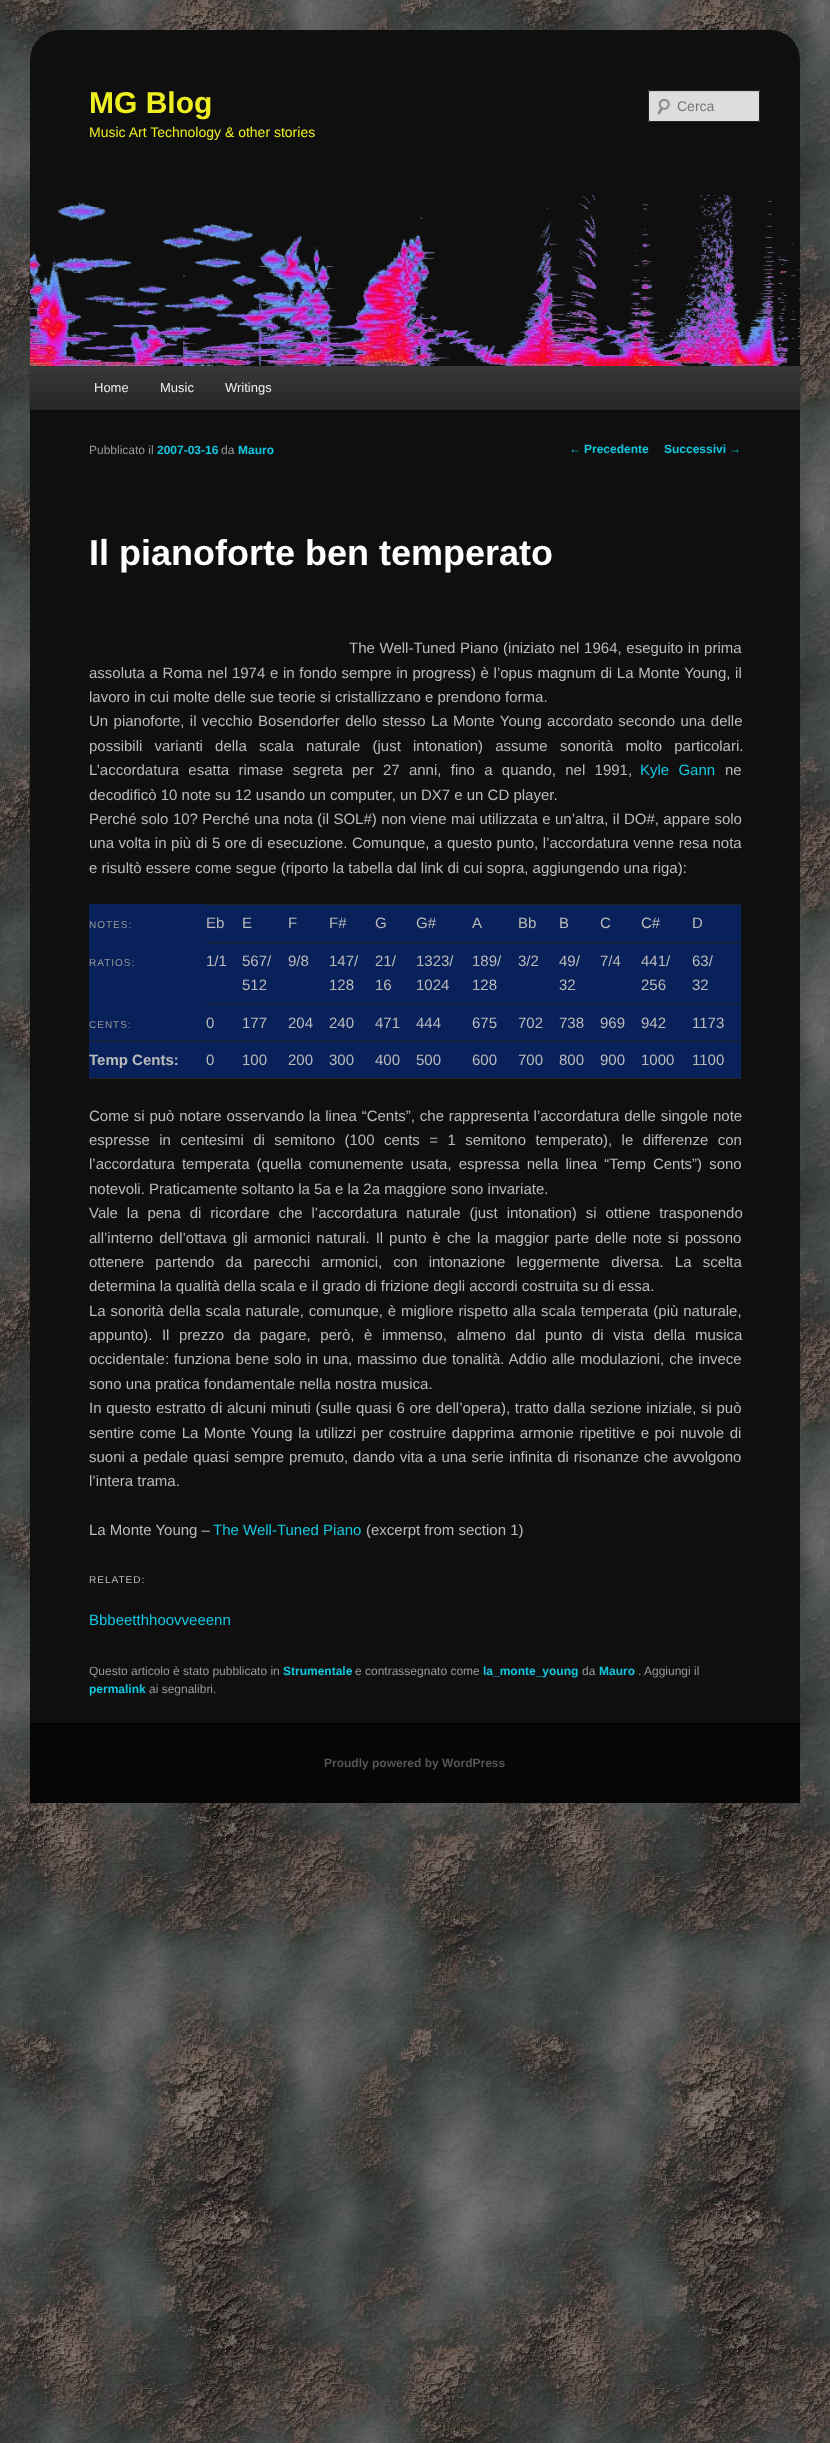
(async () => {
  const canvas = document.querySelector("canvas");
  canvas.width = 830;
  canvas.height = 2443;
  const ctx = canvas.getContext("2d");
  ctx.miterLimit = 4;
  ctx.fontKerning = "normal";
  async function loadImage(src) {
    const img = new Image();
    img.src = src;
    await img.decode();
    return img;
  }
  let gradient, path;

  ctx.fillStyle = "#ffffff";
  ctx.fillRect(0, 0, 830, 2443);
  ctx.drawImage(await loadImage("img/1.png"), 0, 0, 830, 2443);
  ctx.fillStyle = "#0f0f0f";
  ctx.beginPath();
  ctx.roundRect(30, 30, 770, 1773, 30);
  ctx.fill();
  ctx.fillStyle = "#dddddd";
  ctx.beginPath();
  ctx.roundRect(648, 90, 112, 32, 2);
  ctx.fill();
  ctx.drawImage(await loadImage("img/2.png"), 657, 98, 13, 17);
  ctx.fillStyle = "rgba(0, 0, 0, 0.1)";
  path = new Path2D("M650 92H759V93L758 91H668C664 91 649 86 649 93C649 92 649 92 650 92Z");
  ctx.fill(path);
  ctx.beginPath();
  ctx.roundRect(648.5, 90.5, 111, 31, 1.5);
  ctx.strokeStyle = "#222222";
  ctx.stroke();
  ctx.fillStyle = "rgba(0, 0, 0, 0.4)";
  ctx.filter = "blur(1px)";
  ctx.beginPath();
  ctx.rect(30, 367, 770, 44);
  ctx.fill();
  ctx.filter = "none";
  ctx.drawImage(await loadImage("img/3.png"), 30, 195, 770, 171);
  gradient = ctx.createLinearGradient(415, 366, 415, 409);
  gradient.addColorStop(0, "#383838");
  gradient.addColorStop(1, "#272727");
  ctx.fillStyle = gradient;
  ctx.fillRect(30, 366, 770, 43);
  for (const [x, y, w, h, color] of [
    [30, 409, 770, 1, "#222222"],
    [89, 904, 652, 174, "#08215a"],
    [89, 1078, 652, 1, "#222222"],
    [206, 904, 535, 1, "#222222"],
    [206, 942, 535, 1, "#222222"],
    [206, 1004, 535, 1, "#222222"],
    [89, 1041, 652, 1, "#222222"],
    [30, 1724, 770, 79, "#060606"],
    [30, 1723, 770, 1, "#000000"],
  ]) {
    ctx.fillStyle = color;
    ctx.fillRect(x, y, w, h);
  }
  ctx.font = "bold 30px Liberation Sans";
  ctx.fillStyle = "#eeee22";
  ctx.fillText("MG Blog", 89, 113);
  ctx.font = "14px Liberation Sans";
  ctx.fillText("Music Art Technology & other stories", 89, 137);
  ctx.fillStyle = "#757575";
  ctx.fillText("Cerca", 677, 111);
  ctx.font = "13px Liberation Sans";
  ctx.fillStyle = "#eeeeee";
  for (const [text, x, y] of [
    ["Home", 94, 392],
    ["Music", 160, 392],
    ["Writings", 225, 392],
  ]) {
    ctx.fillText(text, x, y);
  }
  ctx.font = "12px Liberation Sans";
  ctx.fillStyle = "#12c7e2";
  ctx.fillText("←", 569, 453);
  ctx.font = "bold 12px Liberation Sans";
  ctx.fillText("Precedente", 584, 453);
  ctx.fillText("Successivi", 664, 453);
  ctx.font = "12px Liberation Sans";
  ctx.fillText("→", 729, 453);
  ctx.fillStyle = "#999999";
  ctx.fillText("Pubblicato il", 89, 454);
  ctx.font = "bold 12px Liberation Sans";
  ctx.fillStyle = "#12c7e2";
  ctx.fillText("2007-03-16", 157, 454);
  ctx.font = "12px Liberation Sans";
  ctx.fillStyle = "#999999";
  ctx.fillText("da", 221, 454);
  ctx.font = "bold 12px Liberation Sans";
  ctx.fillStyle = "#12c7e2";
  ctx.fillText("Mauro", 238, 454);
  ctx.font = "bold 36px Liberation Sans";
  ctx.fillStyle = "#ffffff";
  ctx.fillText("Il pianoforte ben temperato", 89, 565);
  ctx.wordSpacing = "0.5px";
  ctx.font = "15px Liberation Sans";
  ctx.fillStyle = "#bbbbbb";
  ctx.fillText("The Well-Tuned Piano (iniziato nel 1964, eseguito in prima", 349, 653);
  ctx.fillText("assoluta a Roma nel 1974 e in fondo sempre in progress) è l’opus magnum di La Monte Young, il", 89, 678);
  ctx.wordSpacing = "0px";
  ctx.fillText("lavoro in cui molte delle sue teorie si cristallizzano e prendono forma.", 89, 702);
  ctx.wordSpacing = "1.2px";
  ctx.fillText("Un pianoforte, il vecchio Bosendorfer dello stesso La Monte Young accordato secondo una delle", 89, 726);
  ctx.wordSpacing = "8px";
  ctx.fillText("possibili varianti della scala naturale (just intonation) assume sonorità molto particolari.", 89, 751);
  ctx.wordSpacing = "5.1px";
  ctx.fillText("L’accordatura esatta rimase segreta per 27 anni, fino a quando, nel 1991,", 89, 775);
  ctx.fillStyle = "#12c7e2";
  ctx.fillText("Kyle Gann", 640, 775);
  ctx.wordSpacing = "0px";
  ctx.fillStyle = "#bbbbbb";
  ctx.fillText("ne", 725, 775);
  ctx.fillText("decodificò 10 note su 12 usando un computer, un DX7 e un CD player.", 89, 800);
  ctx.wordSpacing = "0.25px";
  ctx.fillText("Perché solo 10? Perché una nota (il SOL#) non viene mai utilizzata e un’altra, il DO#, appare solo", 89, 824);
  ctx.wordSpacing = "0.4px";
  ctx.fillText("una volta in più di 5 ore di esecuzione. Comunque, a questo punto, l’accordatura venne resa nota", 89, 848);
  ctx.wordSpacing = "0px";
  ctx.fillText("e risultò essere come segue (riporto la tabella dal link di cui sopra, aggiungendo una riga):", 89, 873);
  ctx.letterSpacing = "1px";
  ctx.font = "10px Liberation Sans";
  ctx.fillStyle = "#999999";
  ctx.fillText("NOTES:", 89, 928);
  ctx.letterSpacing = "0px";
  ctx.font = "15px Liberation Sans";
  ctx.fillStyle = "#bbbbbb";
  for (const [text, x, y] of [
    ["Eb", 206, 928],
    ["E", 242, 928],
    ["F", 288, 928],
    ["F#", 329, 928],
    ["G", 375, 928],
    ["G#", 416, 928],
    ["A", 472, 928],
    ["Bb", 518, 928],
    ["B", 559, 928],
    ["C", 600, 928],
    ["C#", 641, 928],
    ["D", 692, 928],
  ]) {
    ctx.fillText(text, x, y);
  }
  ctx.letterSpacing = "1px";
  ctx.font = "10px Liberation Sans";
  ctx.fillStyle = "#999999";
  ctx.fillText("RATIOS:", 89, 966);
  ctx.letterSpacing = "0px";
  ctx.font = "15px Liberation Sans";
  ctx.fillStyle = "#bbbbbb";
  for (const [text, x, y] of [
    ["1/1", 206, 966],
    ["567/", 242, 966],
    ["512", 242, 990],
    ["9/8", 288, 966],
    ["147/", 329, 966],
    ["128", 329, 990],
    ["21/", 375, 966],
    ["16", 375, 990],
    ["1323/", 416, 966],
    ["1024", 416, 990],
    ["189/", 472, 966],
    ["128", 472, 990],
    ["3/2", 518, 966],
    ["49/", 559, 966],
    ["32", 559, 990],
    ["7/4", 600, 966],
    ["441/", 641, 966],
    ["256", 641, 990],
    ["63/", 692, 966],
    ["32", 692, 990],
  ]) {
    ctx.fillText(text, x, y);
  }
  ctx.letterSpacing = "1px";
  ctx.font = "10px Liberation Sans";
  ctx.fillStyle = "#999999";
  ctx.fillText("CENTS:", 89, 1028);
  ctx.letterSpacing = "0px";
  ctx.font = "15px Liberation Sans";
  ctx.fillStyle = "#bbbbbb";
  for (const [text, x, y] of [
    ["0", 206, 1028],
    ["177", 242, 1028],
    ["204", 288, 1028],
    ["240", 329, 1028],
    ["471", 375, 1028],
    ["444", 416, 1028],
    ["675", 472, 1028],
    ["702", 518, 1028],
    ["738", 559, 1028],
    ["969", 600, 1028],
    ["942", 641, 1028],
    ["1173", 692, 1028],
  ]) {
    ctx.fillText(text, x, y);
  }
  ctx.font = "bold 15px Liberation Sans";
  ctx.fillText("Temp Cents:", 89, 1065);
  ctx.font = "15px Liberation Sans";
  for (const [text, x, y] of [
    ["0", 206, 1065],
    ["100", 242, 1065],
    ["200", 288, 1065],
    ["300", 329, 1065],
    ["400", 375, 1065],
    ["500", 416, 1065],
    ["600", 472, 1065],
    ["700", 518, 1065],
    ["800", 559, 1065],
    ["900", 600, 1065],
    ["1000", 641, 1065],
    ["1100", 692, 1065],
  ]) {
    ctx.fillText(text, x, y);
  }
  ctx.wordSpacing = "0.6px";
  ctx.fillText("Come si può notare osservando la linea “Cents”, che rappresenta l’accordatura delle singole note", 89, 1121);
  ctx.wordSpacing = "5.25px";
  ctx.fillText("espresse in centesimi di semitono (100 cents = 1 semitono temperato), le differenze con", 89, 1145);
  ctx.wordSpacing = "2.9px";
  ctx.fillText("l’accordatura temperata (quella comunemente usata, espressa nella linea “Temp Cents”) sono", 89, 1169);
  ctx.wordSpacing = "0px";
  ctx.fillText("notevoli. Praticamente soltanto la 5a e la 2a maggiore sono invariate.", 89, 1194);
  ctx.wordSpacing = "4.75px";
  ctx.fillText("Vale la pena di ricordare che l’accordatura naturale (just intonation) si ottiene trasponendo", 89, 1218);
  ctx.wordSpacing = "1.8px";
  ctx.fillText("all’interno dell’ottava gli armonici naturali. Il punto è che la maggior parte delle note si possono", 89, 1243);
  ctx.wordSpacing = "7px";
  ctx.fillText("ottenere partendo da parecchi armonici, con intonazione leggermente diversa. La scelta", 89, 1267);
  ctx.wordSpacing = "0px";
  ctx.fillText("determina la qualità della scala e il grado di frizione degli accordi costruita su di essa.", 89, 1291);
  ctx.wordSpacing = "0.75px";
  ctx.fillText("La sonorità della scala naturale, comunque, è migliore rispetto alla scala temperata (più naturale,", 89, 1316);
  ctx.wordSpacing = "5.4px";
  ctx.fillText("appunto). Il prezzo da pagare, però, è immenso, almeno dal punto di vista della musica", 89, 1340);
  ctx.wordSpacing = "0.75px";
  ctx.fillText("occidentale: funziona bene solo in una, massimo due tonalità. Addio alle modulazioni, che invece", 89, 1364);
  ctx.wordSpacing = "0px";
  ctx.fillText("sono una pratica fondamentale nella nostra musica.", 89, 1389);
  ctx.wordSpacing = "0.5px";
  ctx.fillText("In questo estratto di alcuni minuti (sulle quasi 6 ore dell’opera), tratto dalla sezione iniziale, si può", 89, 1413);
  ctx.wordSpacing = "1.3px";
  ctx.fillText("sentire come La Monte Young la utilizzi per costruire dapprima armonie ripetitive e poi nuvole di", 89, 1438);
  ctx.wordSpacing = "0.8px";
  ctx.fillText("suoni a pedale quasi sempre premuto, dando vita a una serie infinita di risonanze che avvolgono", 89, 1462);
  ctx.wordSpacing = "0px";
  ctx.fillText("l’intera trama.", 89, 1486);
  ctx.fillText("La Monte Young –", 89, 1535);
  ctx.fillStyle = "#12c7e2";
  ctx.fillText("The Well-Tuned Piano", 213, 1535);
  ctx.fillStyle = "#bbbbbb";
  ctx.fillText("(excerpt from section 1)", 366, 1535);
  ctx.letterSpacing = "1px";
  ctx.font = "10px Liberation Sans";
  ctx.fillText("RELATED:", 89, 1583);
  ctx.letterSpacing = "0px";
  ctx.font = "15px Liberation Sans";
  ctx.fillStyle = "#12c7e2";
  ctx.fillText("Bbbeetthhoovveeenn", 89, 1625);
  ctx.font = "12px Liberation Sans";
  ctx.fillStyle = "#999999";
  ctx.fillText("Questo articolo è stato pubblicato in", 89, 1675);
  ctx.font = "bold 12px Liberation Sans";
  ctx.fillStyle = "#12c7e2";
  ctx.fillText("Strumentale", 283, 1675);
  ctx.font = "12px Liberation Sans";
  ctx.fillStyle = "#999999";
  ctx.fillText("e contrassegnato come", 355, 1675);
  ctx.font = "bold 12px Liberation Sans";
  ctx.fillStyle = "#12c7e2";
  ctx.fillText("la_monte_young", 483, 1675);
  ctx.font = "12px Liberation Sans";
  ctx.fillStyle = "#999999";
  ctx.fillText("da", 582, 1675);
  ctx.font = "bold 12px Liberation Sans";
  ctx.fillStyle = "#12c7e2";
  ctx.fillText("Mauro", 599, 1675);
  ctx.font = "12px Liberation Sans";
  ctx.fillStyle = "#999999";
  ctx.fillText(". Aggiungi il", 638, 1675);
  ctx.font = "bold 12px Liberation Sans";
  ctx.fillStyle = "#12c7e2";
  ctx.fillText("permalink", 89, 1693);
  ctx.font = "12px Liberation Sans";
  ctx.fillStyle = "#999999";
  ctx.fillText("ai segnalibri.", 149, 1693);
  ctx.font = "bold 12px Liberation Sans";
  ctx.fillStyle = "#555555";
  ctx.fillText("Proudly powered by WordPress", 324, 1767);
})();
